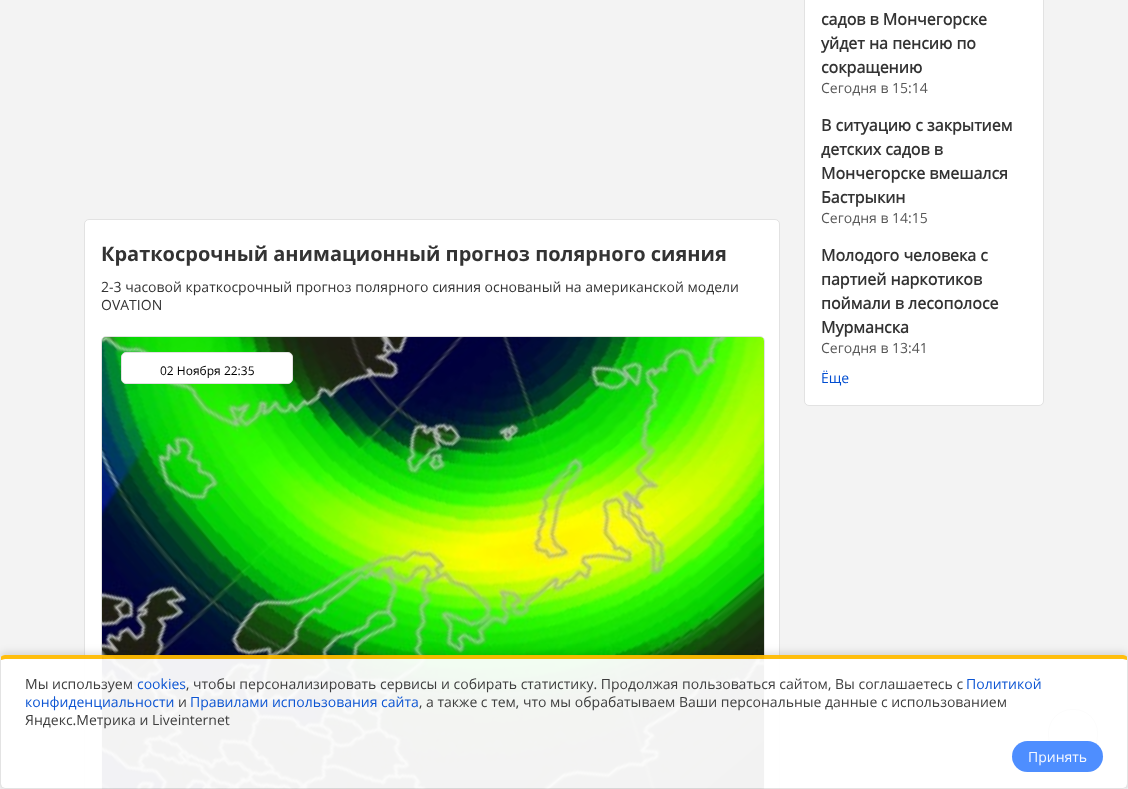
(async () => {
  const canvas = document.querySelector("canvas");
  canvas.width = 1128;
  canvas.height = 789;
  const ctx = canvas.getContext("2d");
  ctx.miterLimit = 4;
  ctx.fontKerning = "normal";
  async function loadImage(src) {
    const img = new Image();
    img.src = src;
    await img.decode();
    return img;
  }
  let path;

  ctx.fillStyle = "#f3f3f3";
  ctx.fillRect(0, 0, 1128, 789);
  ctx.fillStyle = "#ffffff";
  ctx.beginPath();
  ctx.roundRect(84.5, 219.5, 695, 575, 4.5);
  ctx.fill();
  ctx.strokeStyle = "#e2e2e2";
  ctx.stroke();
  ctx.beginPath();
  ctx.roundRect(101.5, 336.5, 663, 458, 4.5);
  ctx.strokeStyle = "#e1e1e1";
  ctx.stroke();
  ctx.drawImage(await loadImage("img/1.png"), 102, 337, 662, 452);
  ctx.beginPath();
  ctx.roundRect(121.5, 352.5, 171, 31, 4.5);
  ctx.fill();
  ctx.stroke();
  ctx.beginPath();
  ctx.roundRect(804.5, -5.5, 239, 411, 4.5);
  ctx.fill();
  ctx.strokeStyle = "#e2e2e2";
  ctx.stroke();
  ctx.fillStyle = "#f9f9f9";
  ctx.beginPath();
  ctx.roundRect(1048.5, 709.5, 49, 49, 23.5);
  ctx.fill();
  ctx.strokeStyle = "#bebebe";
  ctx.stroke();
  ctx.save();
  path = new Path2D("M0 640H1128V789H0ZM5 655H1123C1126 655 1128 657 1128 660V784C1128 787 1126 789 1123 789H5C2 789 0 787 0 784V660C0 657 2 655 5 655Z");
  ctx.clip(path, "evenodd");
  ctx.fillStyle = "rgba(0, 0, 0, 0.14)";
  ctx.filter = "blur(4px)";
  ctx.beginPath();
  ctx.roundRect(0, 653, 1128, 134, 5);
  ctx.fill();
  ctx.filter = "none";
  ctx.restore();
  ctx.fillStyle = "rgba(255, 255, 255, 0.95)";
  path = new Path2D("M5 659H1123C1125 659 1127 659 1127 660V784C1127 786 1125 788 1123 788H5C3 788 1 786 1 784V660C1 659 3 659 5 659Z");
  ctx.fill(path);
  ctx.fillStyle = "rgba(255, 187, 0, 0.95)";
  path = new Path2D("M5 655C3 655 1 656 1 657V660L5 659H1123L1127 660V657C1127 656 1125 655 1123 655Z");
  ctx.fill(path);
  ctx.fillStyle = "#e3e3e3";
  path = new Path2D("M1128 784V660L1127 657V660V784L1126 787L1127 788C1128 787 1128 786 1128 784Z");
  ctx.fill(path);
  ctx.fillStyle = "rgba(226, 226, 226, 0.95)";
  path = new Path2D("M5 789H1123C1124 789 1126 788 1127 788L1126 787L1123 788H5L2 787L1 788C2 788 4 789 5 789Z");
  ctx.fill(path);
  ctx.fillStyle = "#e3e3e3";
  path = new Path2D("M0 660V785L1 788L2 787L1 784V660V657Z");
  ctx.fill(path);
  ctx.fillStyle = "rgba(68, 136, 255, 0.95)";
  ctx.beginPath();
  ctx.roundRect(1012, 741, 91, 31, 15.5);
  ctx.fill();
  ctx.font = "bold 20px 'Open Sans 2'";
  ctx.fillStyle = "#333333";
  ctx.fillText("Краткосрочный анимационный прогноз полярного сияния", 101, 261);
  ctx.font = "14px Open Sans";
  ctx.fillText("2-3 часовой краткосрочный прогноз полярного сияния основаный на американской модели", 101, 292);
  ctx.fillText("OVATION", 101, 310);
  ctx.font = "12px Open Sans";
  ctx.fillStyle = "#000000";
  ctx.fillText("02 Ноября 22:35", 160, 375);
  ctx.font = "bold 16px Open Sans";
  ctx.fillStyle = "#333333";
  for (const [text, x, y] of [
    ["садов в Мончегорске", 821, 25],
    ["уйдет на пенсию по", 821, 49],
    ["сокращению", 821, 73],
  ]) {
    ctx.fillText(text, x, y);
  }
  ctx.font = "14px Open Sans";
  ctx.fillStyle = "#575757";
  ctx.fillText("Сегодня в 15:14", 821, 93);
  ctx.font = "bold 16px Open Sans";
  ctx.fillStyle = "#333333";
  for (const [text, x, y] of [
    ["В ситуацию с закрытием", 821, 131],
    ["детских садов в", 821, 155],
    ["Мончегорске вмешался", 821, 179],
    ["Бастрыкин", 821, 203],
  ]) {
    ctx.fillText(text, x, y);
  }
  ctx.font = "14px Open Sans";
  ctx.fillStyle = "#575757";
  ctx.fillText("Сегодня в 14:15", 821, 223);
  ctx.font = "bold 16px Open Sans";
  ctx.fillStyle = "#333333";
  for (const [text, x, y] of [
    ["Молодого человека с", 821, 261],
    ["партией наркотиков", 821, 285],
    ["поймали в лесополосе", 821, 309],
    ["Мурманска", 821, 333],
  ]) {
    ctx.fillText(text, x, y);
  }
  ctx.font = "14px Open Sans";
  ctx.fillStyle = "#575757";
  ctx.fillText("Сегодня в 13:41", 821, 353);
  ctx.fillStyle = "#004dd1";
  ctx.fillText("Ёще", 821, 383);
  ctx.fillStyle = "#3d3d3d";
  ctx.fillText("Мы используем", 25, 689);
  ctx.fillStyle = "#0c55d3";
  ctx.fillText("cookies", 137, 689);
  ctx.fillStyle = "#3d3d3d";
  ctx.fillText(", чтобы персонализировать сервисы и собирать статистику. Продолжая пользоваться сайтом, Вы соглашаетесь с", 186, 689);
  ctx.fillStyle = "#0c55d3";
  ctx.fillText("Политикой", 966, 689);
  ctx.fillText("конфиденциальности", 25, 707);
  ctx.fillStyle = "#3d3d3d";
  ctx.fillText("и", 178, 707);
  ctx.fillStyle = "#0c55d3";
  ctx.fillText("Правилами использования сайта", 190, 707);
  ctx.fillStyle = "#3d3d3d";
  ctx.fillText(", а также с тем, что мы обрабатываем Ваши персональные данные с использованием", 419, 707);
  ctx.fillText("Яндекс.Метрика и Liveinternet", 25, 725);
  ctx.fillStyle = "#f6f9ff";
  ctx.fillText("Принять", 1028, 762);
})();
